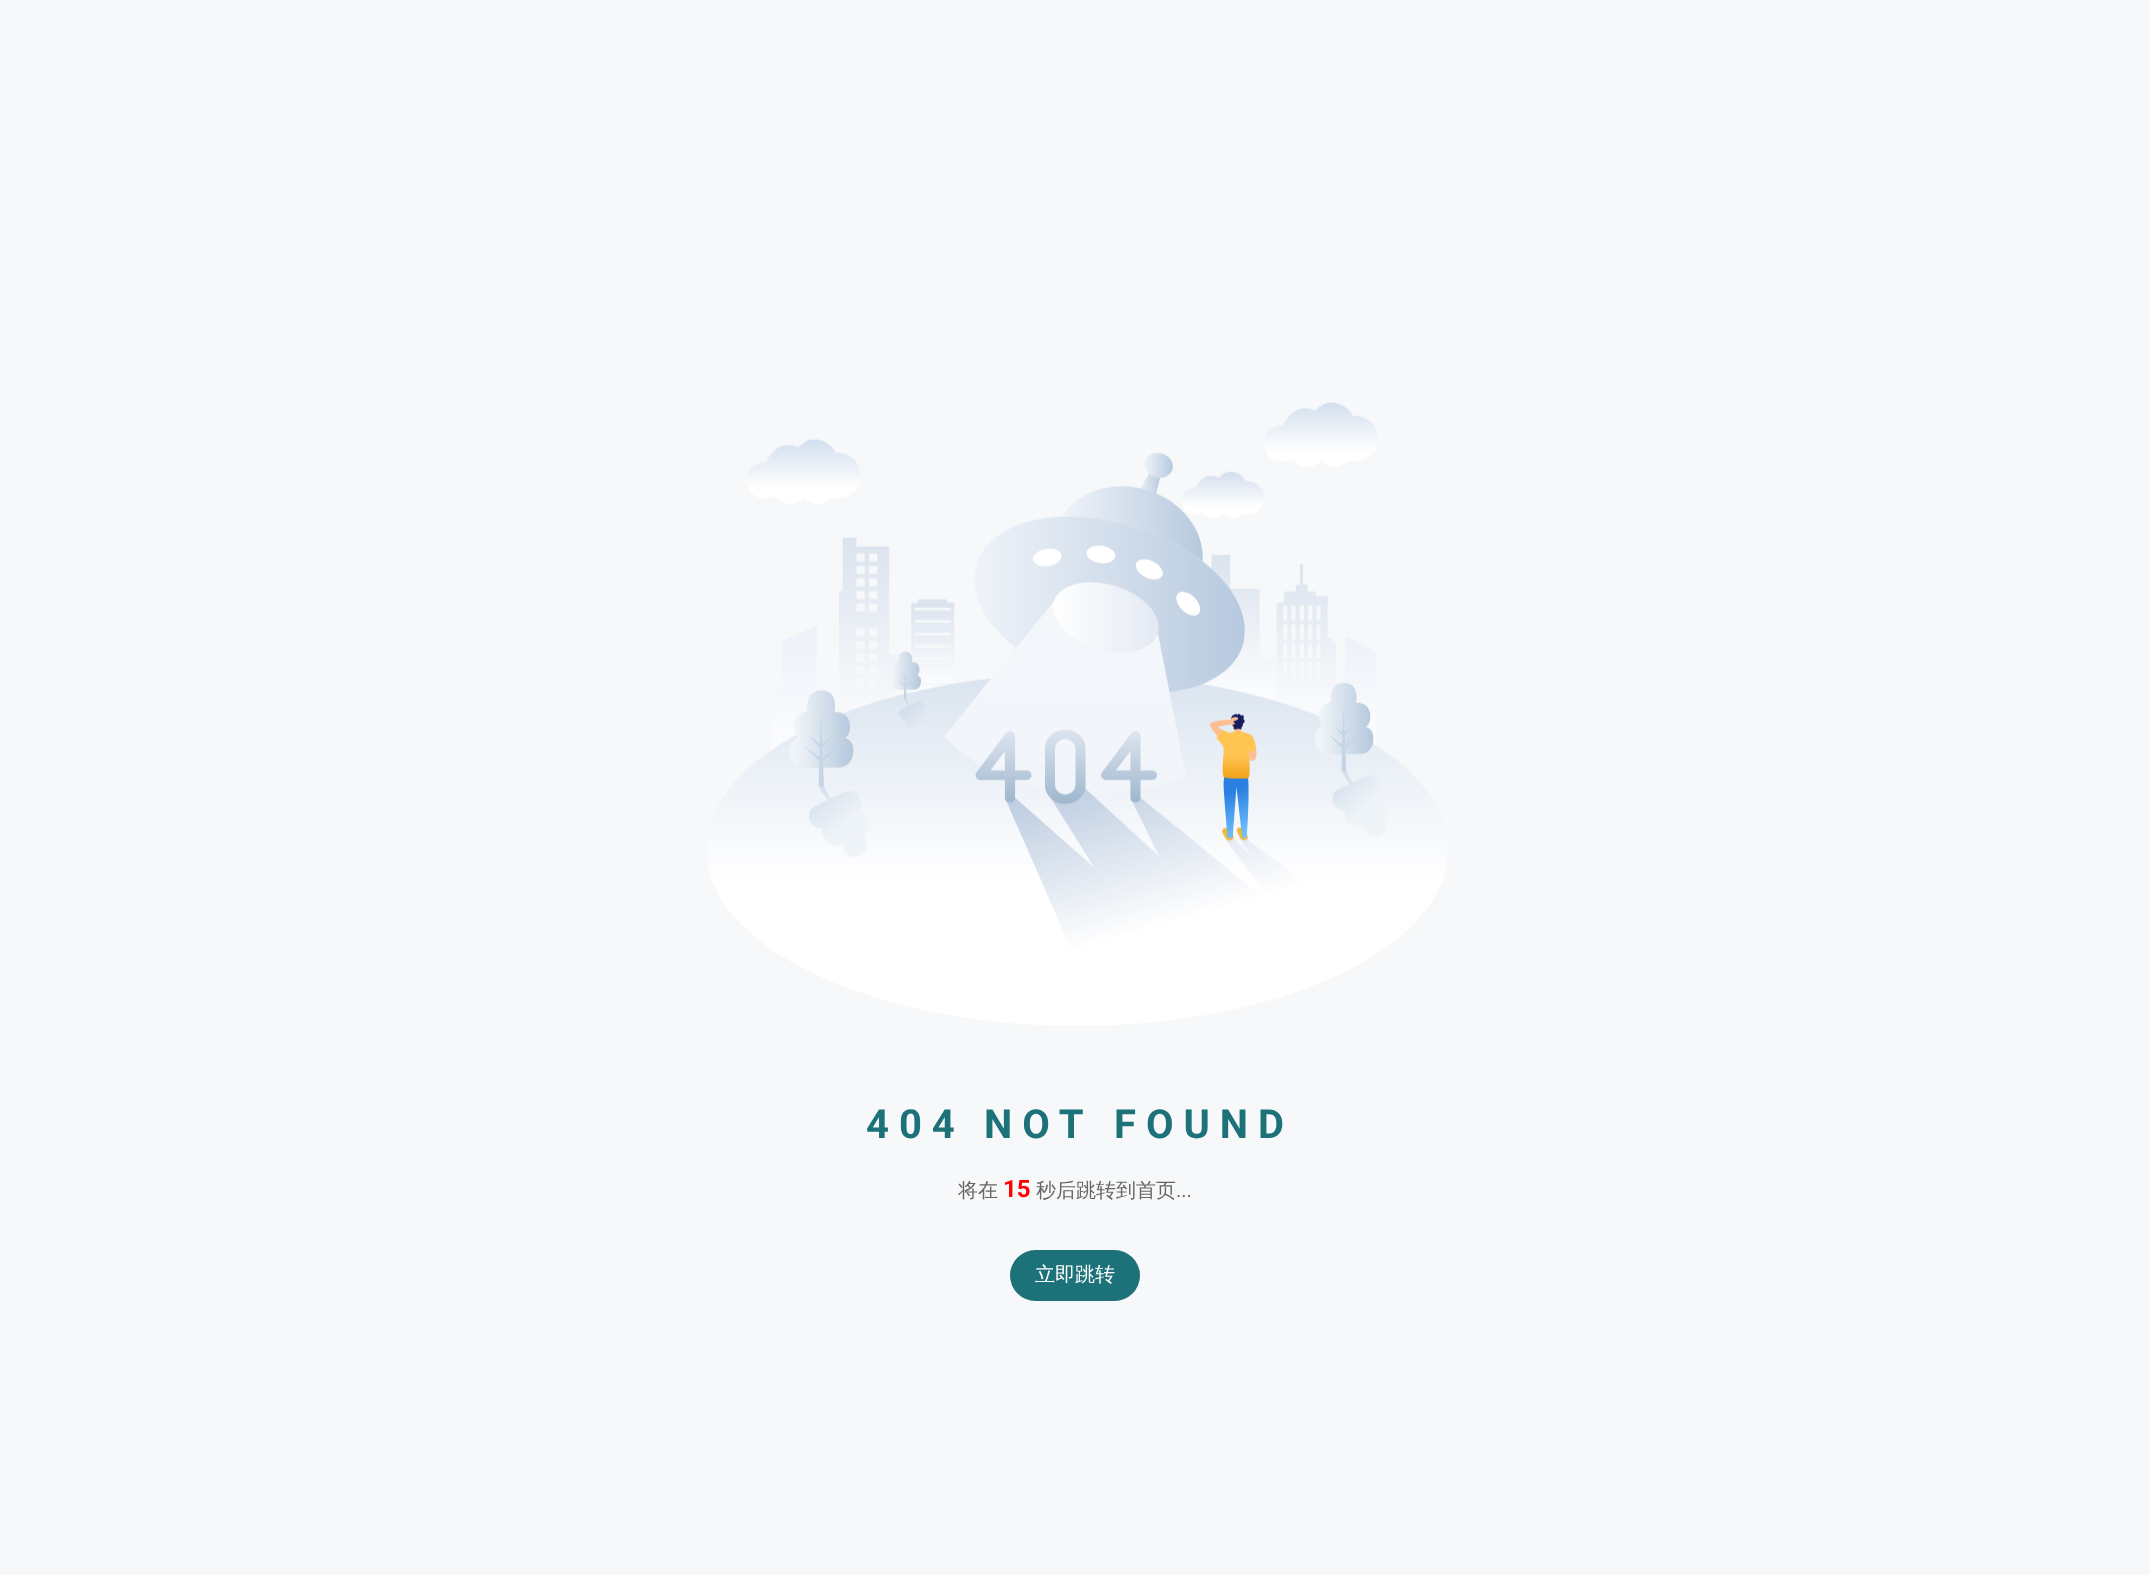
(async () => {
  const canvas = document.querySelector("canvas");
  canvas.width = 2150;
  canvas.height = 1575;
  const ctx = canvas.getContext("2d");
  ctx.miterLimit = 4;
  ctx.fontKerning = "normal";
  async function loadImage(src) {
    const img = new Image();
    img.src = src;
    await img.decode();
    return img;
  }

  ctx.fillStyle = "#f6f8f9";
  ctx.fillRect(0, 0, 2150, 1575);
  ctx.drawImage(await loadImage("img/1.png"), 707, 402, 740, 624);
  ctx.fillStyle = "#1d7179";
  ctx.beginPath();
  ctx.roundRect(1010, 1250, 130, 51, 25.5);
  ctx.fill();
  ctx.font = "bold 40px Roboto";
  for (const [text, x, y] of [
    ["4 0 4", 866, 1138],
    ["N O T", 984, 1138],
    ["F O U N D", 1114, 1138],
  ]) {
    ctx.fillText(text, x, y);
  }
  ctx.font = "500 20px WenQuanYi Zen Hei";
  ctx.fillStyle = "#666666";
  ctx.fillText("将在", 958, 1197);
  ctx.font = "bold 24px Roboto";
  ctx.fillStyle = "#ff0000";
  ctx.fillText("15", 1003, 1197);
  ctx.font = "500 20px WenQuanYi Zen Hei";
  ctx.fillStyle = "#666666";
  ctx.fillText("秒后跳转到首页", 1036, 1197);
  ctx.font = "20px Roboto";
  ctx.fillText("...", 1176, 1197);
  ctx.font = "500 20px WenQuanYi Zen Hei";
  ctx.fillStyle = "#ffffff";
  ctx.fillText("立即跳转", 1035, 1281);
})();
